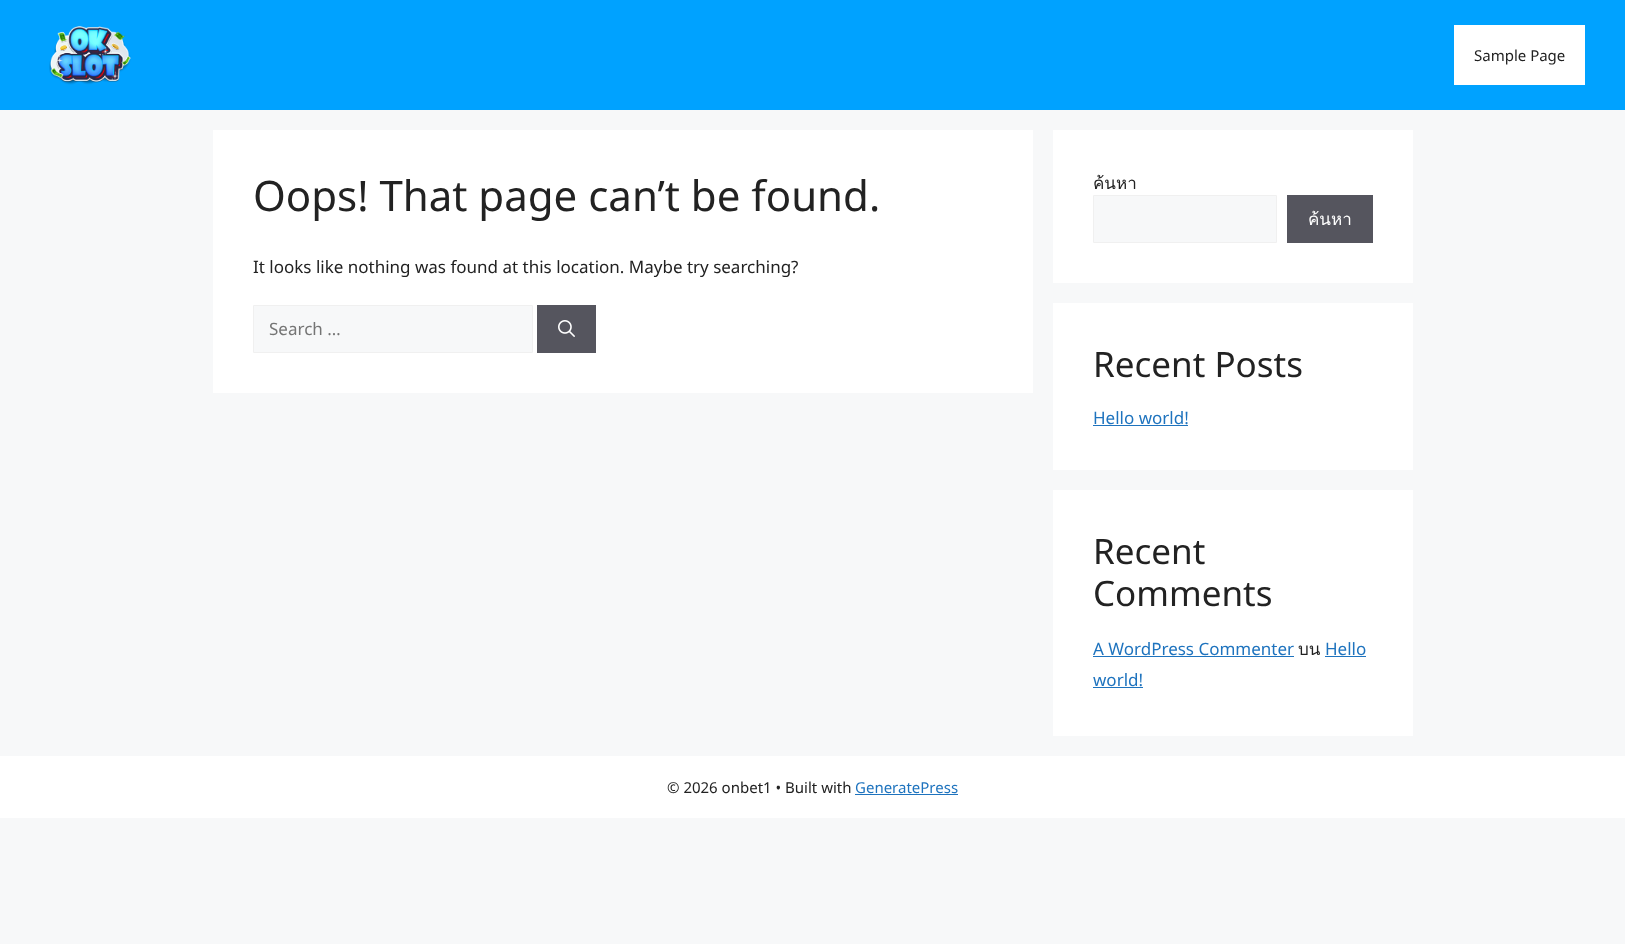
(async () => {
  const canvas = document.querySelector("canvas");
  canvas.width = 1625;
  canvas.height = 944;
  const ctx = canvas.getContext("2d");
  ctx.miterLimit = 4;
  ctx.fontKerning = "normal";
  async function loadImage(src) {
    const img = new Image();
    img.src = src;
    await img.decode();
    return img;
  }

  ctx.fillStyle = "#f7f8f9";
  ctx.fillRect(0, 0, 1625, 944);
  ctx.fillStyle = "#00a2ff";
  ctx.fillRect(0, 0, 1625, 110);
  ctx.drawImage(await loadImage("img/1.png"), 49, 26, 82, 59);
  ctx.fillStyle = "#ffffff";
  ctx.fillRect(1454, 25, 131, 60);
  ctx.fillRect(213, 130, 820, 263);
  ctx.fillStyle = "#f7f8f9";
  ctx.beginPath();
  ctx.rect(253.5, 305.5, 279, 47);
  ctx.fill();
  ctx.strokeStyle = "#f0f0f0";
  ctx.stroke();
  ctx.fillStyle = "#55555e";
  ctx.fillRect(537, 305, 59, 48);
  ctx.drawImage(await loadImage("img/2.png"), 558, 320, 17, 17);
  ctx.fillStyle = "#ffffff";
  ctx.fillRect(1053, 130, 360, 153);
  ctx.fillStyle = "#f7f8f9";
  ctx.beginPath();
  ctx.rect(1093.5, 195.5, 183, 47);
  ctx.fill();
  ctx.stroke();
  for (const [x, y, w, h, color] of [
    [1287, 195, 86, 48, "#55555e"],
    [1053, 303, 360, 167, "#ffffff"],
    [1093, 425, 95, 1, "#1e73be"],
    [1053, 490, 360, 246, "#ffffff"],
    [1093, 656, 201, 1, "#1e73be"],
    [1325, 656, 41, 1, "#1e73be"],
    [1093, 687, 50, 1, "#1e73be"],
    [0, 756, 1625, 62, "#ffffff"],
    [855, 794, 103, 1, "#1e73be"],
  ]) {
    ctx.fillStyle = color;
    ctx.fillRect(x, y, w, h);
  }
  ctx.font = "15px Noto Sans";
  ctx.fillStyle = "#222222";
  ctx.fillText("Sample Page", 1474, 61);
  ctx.font = "42px Noto Sans";
  ctx.fillText("Oops! That page can’t be found.", 253, 211);
  ctx.font = "17px Noto Sans";
  ctx.fillText("It looks like nothing was found at this location. Maybe try searching?", 253, 273);
  ctx.fillStyle = "#757575";
  ctx.fillText("Search …", 269, 335);
  ctx.font = "17px Loma";
  ctx.fillStyle = "#222222";
  ctx.fillText("ค้นหา", 1093, 189);
  ctx.fillStyle = "#ffffff";
  ctx.fillText("ค้นหา", 1308, 225);
  ctx.font = "35px Noto Sans";
  ctx.fillStyle = "#222222";
  ctx.fillText("Recent Posts", 1093, 377);
  ctx.font = "17px Noto Sans";
  ctx.fillStyle = "#1e73be";
  ctx.fillText("Hello world!", 1093, 424);
  ctx.font = "35px Noto Sans";
  ctx.fillStyle = "#222222";
  ctx.fillText("Recent", 1093, 564);
  ctx.fillText("Comments", 1093, 606);
  ctx.font = "17px Noto Sans";
  ctx.fillStyle = "#1e73be";
  ctx.fillText("A WordPress Commenter", 1093, 655);
  ctx.font = "17px Loma";
  ctx.fillStyle = "#222222";
  ctx.fillText("บน", 1298, 655);
  ctx.font = "17px Noto Sans";
  ctx.fillStyle = "#1e73be";
  ctx.fillText("Hello", 1325, 655);
  ctx.fillText("world!", 1093, 686);
  ctx.font = "15px Noto Sans";
  ctx.fillStyle = "#222222";
  ctx.fillText("© 2026 onbet1 • Built with", 667, 793);
  ctx.fillStyle = "#1e73be";
  ctx.fillText("GeneratePress", 855, 793);
})();
